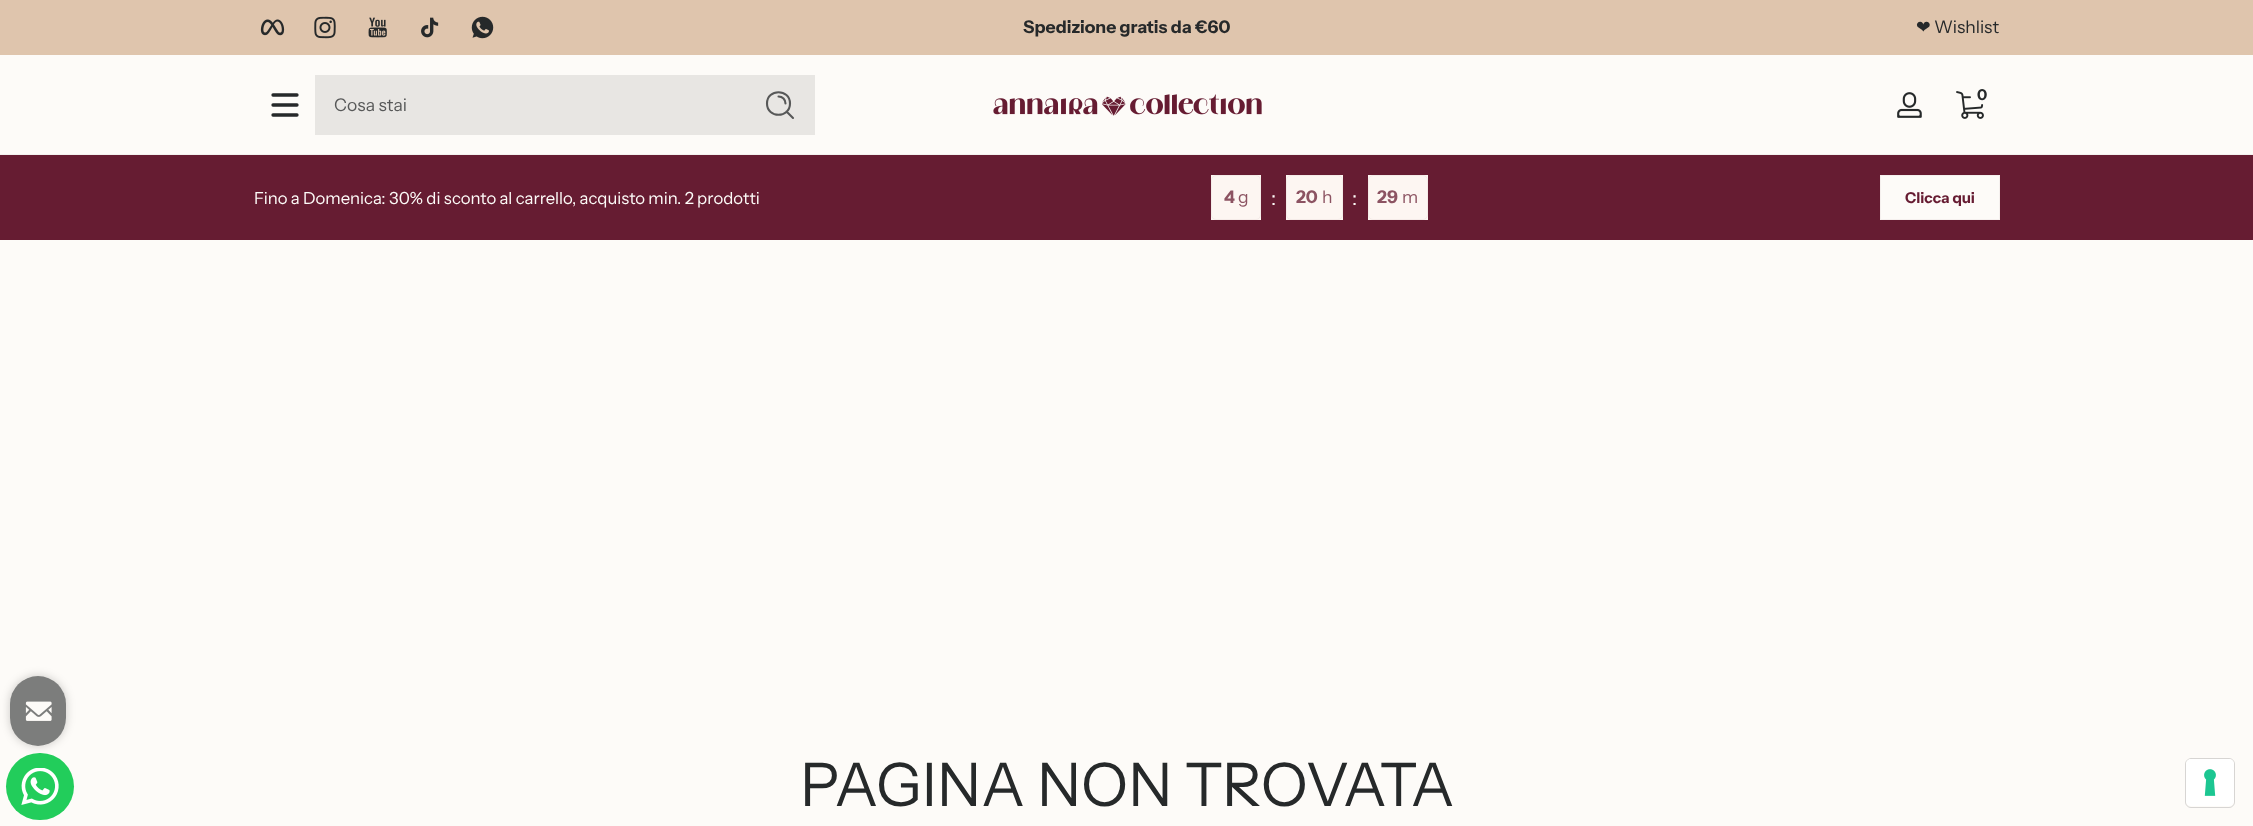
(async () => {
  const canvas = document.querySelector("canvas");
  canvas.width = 2253;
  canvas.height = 826;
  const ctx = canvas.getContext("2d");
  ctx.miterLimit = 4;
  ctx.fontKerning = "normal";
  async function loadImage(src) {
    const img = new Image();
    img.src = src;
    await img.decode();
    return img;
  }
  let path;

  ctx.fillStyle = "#fdfbf8";
  ctx.fillRect(0, 0, 2253, 826);
  ctx.fillStyle = "#dfc5ad";
  ctx.fillRect(0, 0, 2253, 55);
  ctx.drawImage(await loadImage("img/1.png"), 260, 19, 25, 17);
  ctx.drawImage(await loadImage("img/2.png"), 314, 16, 22, 23);
  ctx.drawImage(await loadImage("img/3.png"), 368, 17, 19, 21);
  ctx.drawImage(await loadImage("img/4.png"), 421, 17, 18, 21);
  ctx.drawImage(await loadImage("img/5.png"), 471, 16, 23, 23);
  path = new Path2D("M273 95H297M273 105H297M273 115H297");
  ctx.strokeStyle = "#26292a";
  ctx.lineWidth = 3.3;
  ctx.lineCap = "round";
  ctx.stroke(path);
  ctx.fillStyle = "#e8e6e3";
  ctx.fillRect(315, 75, 500, 60);
  path = new Path2D("M778.5 96.5C782.5 96.5 785.5 99.5 785.5 103.5M786.5 111.5L793 118M790 103.5C790 118.5 767 118.5 767 103.5C767 88.5 790 88.5 790 103.5Z");
  ctx.strokeStyle = "#575858";
  ctx.lineWidth = 2.1;
  ctx.lineJoin = "round";
  ctx.stroke(path);
  ctx.drawImage(await loadImage("img/6.png"), 993, 94, 269, 22);
  ctx.drawImage(await loadImage("img/7.png"), 1897, 92, 25, 26);
  ctx.drawImage(await loadImage("img/8.png"), 1956, 91, 28, 28);
  for (const [x, y, w, h, color] of [
    [0, 154, 2253, 1, "#f2f1ee"],
    [0, 155, 2253, 85, "#661c32"],
    [1211, 175, 50, 45, "#fdf6f2"],
  ]) {
    ctx.fillStyle = color;
    ctx.fillRect(x, y, w, h);
  }
  ctx.beginPath();
  ctx.roundRect(1211.5, 175.5, 49, 44, 4.5);
  ctx.strokeStyle = "#f5ebe8";
  ctx.lineWidth = 1;
  ctx.lineJoin = "miter";
  ctx.stroke();
  ctx.fillRect(1286, 175, 57, 45);
  ctx.beginPath();
  ctx.roundRect(1286.5, 175.5, 56, 44, 4.5);
  ctx.stroke();
  ctx.fillRect(1368, 175, 60, 45);
  ctx.beginPath();
  ctx.roundRect(1368.5, 175.5, 59, 44, 4.5);
  ctx.stroke();
  ctx.fillStyle = "#fdfbf8";
  ctx.fillRect(1881, 176, 118, 43);
  ctx.strokeStyle = "#f5f0ee";
  ctx.strokeRect(1880.5, 175.5, 119, 44);
  ctx.save();
  path = new Path2D("M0 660H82V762H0ZM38 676C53.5 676 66 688.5 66 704V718C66 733.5 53.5 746 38 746C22.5 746 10 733.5 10 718V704C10 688.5 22.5 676 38 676Z");
  ctx.clip(path, "evenodd");
  ctx.fillStyle = "rgba(0, 0, 0, 0.2)";
  ctx.filter = "blur(5px)";
  ctx.beginPath();
  ctx.roundRect(10, 676, 56, 70, 28);
  ctx.fill();
  ctx.filter = "none";
  ctx.restore();
  ctx.fillStyle = "rgba(38, 41, 42, 0.6)";
  ctx.beginPath();
  ctx.roundRect(10, 676, 56, 70, 28);
  ctx.fill();
  ctx.drawImage(await loadImage("img/9.png"), 25, 701, 27, 20);
  ctx.fillStyle = "#22cd5b";
  ctx.beginPath();
  ctx.roundRect(6, 753, 68, 67, 33.5);
  ctx.fill();
  ctx.drawImage(await loadImage("img/10.png"), 21, 768, 38, 37);
  ctx.beginPath();
  ctx.roundRect(2185.5, 758.5, 49, 49, 5.5);
  ctx.strokeStyle = "#d7d5d3";
  ctx.stroke();
  ctx.fillStyle = "#ffffff";
  ctx.beginPath();
  ctx.roundRect(2186, 759, 48, 47, 5);
  ctx.fill();
  ctx.drawImage(await loadImage("img/11.png"), 2204, 769, 12, 27);
  ctx.font = "bold 17.5px Instrument Sans";
  ctx.fillStyle = "#26292a";
  ctx.fillText("Spedizione gratis da €60", 1023, 33);
  ctx.font = "17.5px DejaVu Sans";
  ctx.fillText("❤", 1916, 33);
  ctx.font = "17.5px Instrument Sans";
  ctx.fillText("Wishlist", 1934, 33);
  ctx.fillStyle = "#575858";
  ctx.fillText("Cosa stai", 334, 111);
  ctx.font = "bold 15px Instrument Sans";
  ctx.fillStyle = "#26292a";
  ctx.fillText("0", 1977, 100);
  ctx.font = "16.7px Instrument Sans";
  ctx.fillStyle = "#fdfbf8";
  ctx.fillText("Fino a Domenica: 30% di sconto al carrello, acquisto min. 2 prodotti", 254, 204);
  ctx.font = "bold 17.5px Instrument Sans";
  ctx.fillStyle = "#8c5362";
  ctx.fillText("4", 1224, 203);
  ctx.font = "17.5px Instrument Sans";
  ctx.fillText("g", 1238, 203);
  ctx.font = "20px Instrument Sans";
  ctx.fillStyle = "#fdfbf8";
  ctx.fillText(":", 1271, 205);
  ctx.font = "bold 17.5px Instrument Sans";
  ctx.fillStyle = "#8c5362";
  ctx.fillText("20", 1296, 203);
  ctx.font = "17.5px Instrument Sans";
  ctx.fillText("h", 1322, 203);
  ctx.font = "20px Instrument Sans";
  ctx.fillStyle = "#fdfbf8";
  ctx.fillText(":", 1352, 205);
  ctx.font = "bold 17.5px Instrument Sans";
  ctx.fillStyle = "#8c5362";
  ctx.fillText("29", 1377, 203);
  ctx.font = "17.5px Instrument Sans";
  ctx.fillText("m", 1402, 203);
  ctx.font = "bold 15px Instrument Sans";
  ctx.fillStyle = "#661c32";
  ctx.fillText("Clicca qui", 1905, 203);
  ctx.font = "60px Instrument Sans";
  ctx.fillStyle = "#26292a";
  ctx.fillText("PAGINA NON TROVATA", 800, 806);
})();
